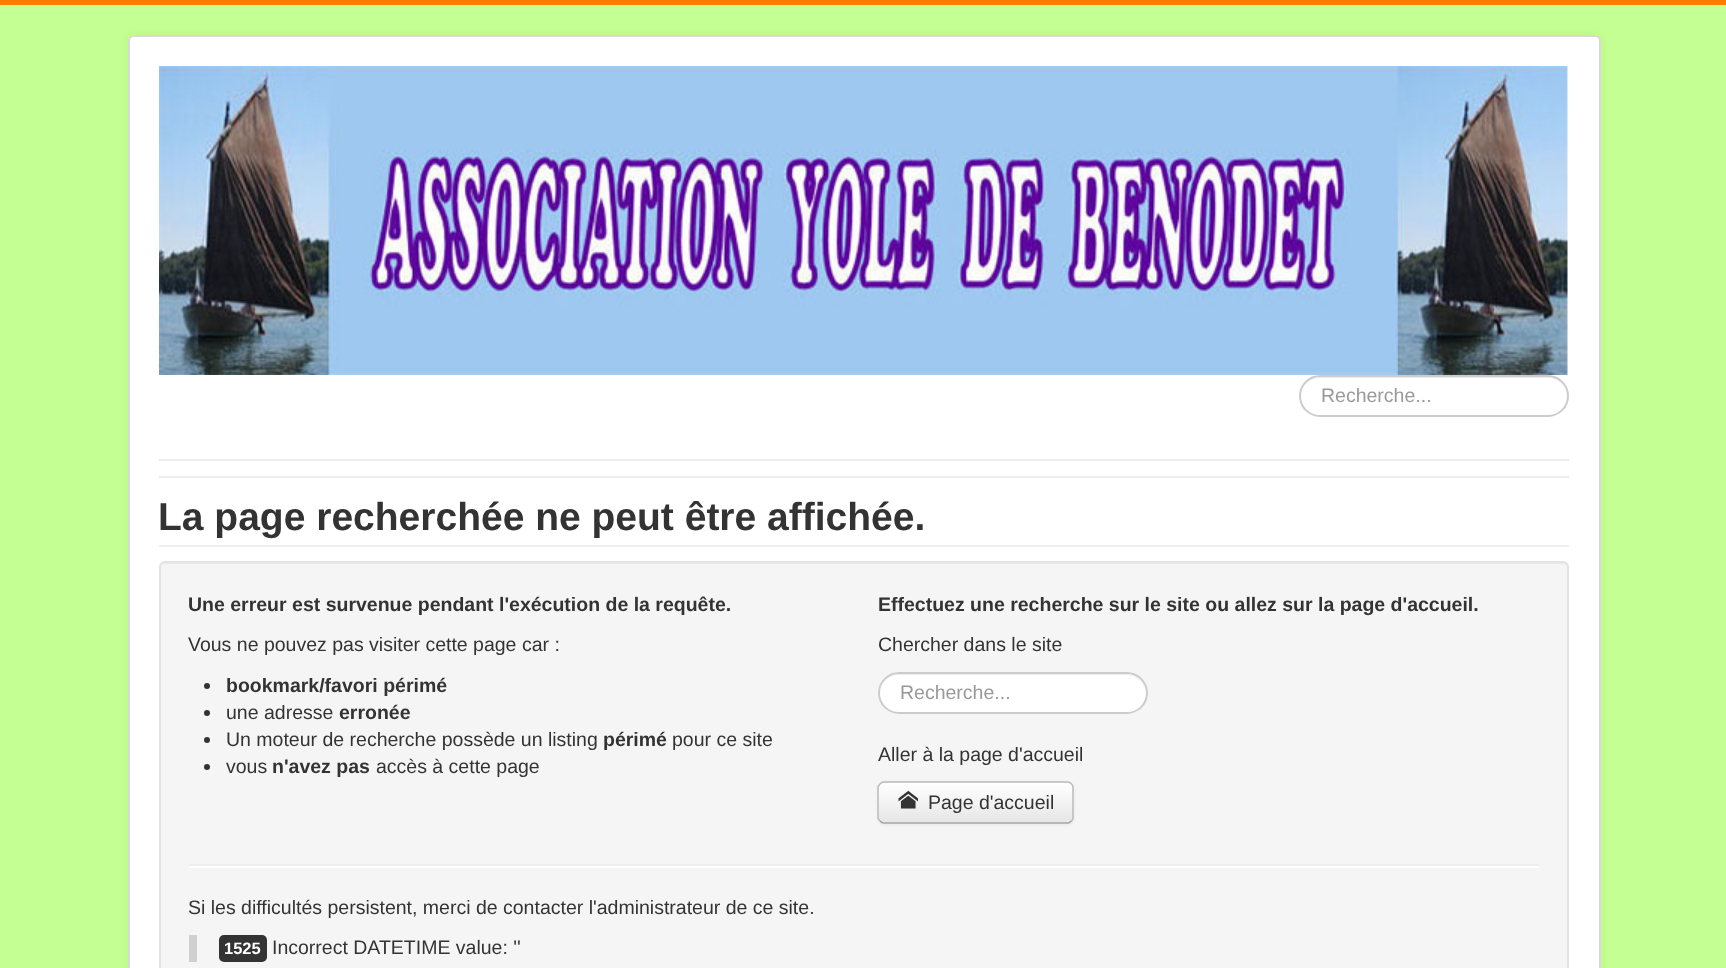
(async () => {
  const canvas = document.querySelector("canvas");
  canvas.width = 1726;
  canvas.height = 968;
  const ctx = canvas.getContext("2d");
  ctx.miterLimit = 4;
  ctx.fontKerning = "normal";
  async function loadImage(src) {
    const img = new Image();
    img.src = src;
    await img.decode();
    return img;
  }
  let gradient, path;

  ctx.fillStyle = "#c4ff94";
  ctx.fillRect(0, 0, 1726, 968);
  ctx.fillStyle = "#ff7b00";
  ctx.fillRect(0, 0, 1726, 5);
  ctx.fillStyle = "rgba(0, 0, 0, 0.05)";
  ctx.filter = "blur(4.5px)";
  ctx.beginPath();
  ctx.roundRect(128, 35, 1473, 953, 6);
  ctx.fill();
  ctx.filter = "none";
  ctx.fillStyle = "#ffffff";
  ctx.beginPath();
  ctx.roundRect(128, 35, 1473, 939, 6);
  ctx.fill();
  ctx.beginPath();
  ctx.roundRect(129, 36, 1471, 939, 5);
  ctx.strokeStyle = "rgba(0, 0, 0, 0.15)";
  ctx.lineWidth = 2;
  ctx.stroke();
  ctx.drawImage(await loadImage("img/1.png"), 159, 66, 1409, 309);
  ctx.fillStyle = "#ececec";
  path = new Path2D("M1320 378H1548C1559 378 1568 387 1568 397V396C1568 386 1559 377 1548 377H1320C1314 377 1308 380 1304 386C1308 381 1314 378 1320 378Z");
  ctx.fill(path);
  ctx.beginPath();
  ctx.roundRect(1300, 376, 268, 40, 20);
  ctx.strokeStyle = "#cccccc";
  ctx.stroke();
  for (const [x, y, w, h, color] of [
    [159, 459, 1410, 2, "#ececec"],
    [159, 476, 1410, 2, "#ececec"],
    [159, 545, 1410, 2, "#eeeeee"],
  ]) {
    ctx.fillStyle = color;
    ctx.fillRect(x, y, w, h);
  }
  ctx.fillStyle = "#f5f5f5";
  ctx.beginPath();
  ctx.roundRect(159, 561, 1410, 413, 6);
  ctx.fill();
  ctx.fillStyle = "#e9e9e9";
  path = new Path2D("M165 564H1563C1565 564 1568 566 1568 568C1568 565 1566 563 1563 563H166C164 563 163 564 162 565Z");
  ctx.fill(path);
  ctx.beginPath();
  ctx.roundRect(160, 562, 1408, 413, 5);
  ctx.strokeStyle = "#e3e3e3";
  ctx.stroke();
  ctx.fillStyle = "#333333";
  ctx.beginPath();
  ctx.arc(207, 686, 3, 0, Math.PI * 2);
  ctx.fill();
  ctx.beginPath();
  ctx.arc(207, 713, 3, 0, Math.PI * 2);
  ctx.fill();
  ctx.beginPath();
  ctx.arc(207, 740, 3, 0, Math.PI * 2);
  ctx.fill();
  ctx.beginPath();
  ctx.arc(207, 767, 3, 0, Math.PI * 2);
  ctx.fill();
  ctx.fillStyle = "#ffffff";
  ctx.beginPath();
  ctx.roundRect(878, 672, 270, 42, 21);
  ctx.fill();
  ctx.fillStyle = "#ececec";
  path = new Path2D("M898 675H1126C1137 675 1146 684 1146 694C1146 665 1102 674 1088 674H936C923 674 879 665 879 694C879 684 888 675 898 675Z");
  ctx.fill(path);
  ctx.beginPath();
  ctx.roundRect(879, 673, 268, 40, 20);
  ctx.strokeStyle = "#cccccc";
  ctx.stroke();
  ctx.fillStyle = "rgba(0, 0, 0, 0.05)";
  ctx.filter = "blur(1.5px)";
  ctx.beginPath();
  ctx.roundRect(878, 783, 196, 42, 6);
  ctx.fill();
  ctx.filter = "none";
  ctx.fillStyle = "#f5f5f5";
  ctx.beginPath();
  ctx.roundRect(878, 782, 196, 42, 6);
  ctx.fill();
  ctx.save();
  ctx.beginPath();
  ctx.roundRect(878, 782, 196, 42, 6);
  ctx.clip();
  gradient = ctx.createLinearGradient(976, 783, 976, 822);
  gradient.addColorStop(0, "#ffffff");
  gradient.addColorStop(1, "#e6e6e6");
  ctx.fillStyle = gradient;
  ctx.fillRect(878, 783, 196, 39);
  ctx.restore();
  ctx.fillStyle = "rgba(255, 255, 255, 0.2)";
  path = new Path2D("M884 784H1068C1074 784 1072 797 1072 799V820C1073 819 1073 818 1073 817V788C1073 785 1071 783 1068 783H884C881 783 879 785 879 788V789C879 787 881 784 884 784Z");
  ctx.fill(path);
  path = new Path2D("M1071.5 821C1070.5 822 1069.5 823 1068 823H883.5C882 823 881 822 880 821");
  ctx.strokeStyle = "#a2a2a2";
  ctx.lineWidth = 1.5;
  ctx.stroke(path);
  path = new Path2D("M880 821C879 820 878 819 878 817.5V787.5C878 786 879 785 880 784C881 783 882 782 883.5 782H1068C1069.5 782 1070.5 783 1071.5 784C1072.5 785 1073 786 1073 787.5V817.5C1073 819 1072.5 820 1071.5 821");
  ctx.strokeStyle = "#bbbbbb";
  ctx.stroke(path);
  ctx.drawImage(await loadImage("img/2.png"), 898, 790, 20, 19);
  for (const [x, y, w, h, color] of [
    [189, 864, 1350, 2, "#eeeeee"],
    [189, 866, 1350, 2, "#ffffff"],
    [189, 935, 8, 27, "#d0d0d0"],
  ]) {
    ctx.fillStyle = color;
    ctx.fillRect(x, y, w, h);
  }
  ctx.fillStyle = "#333333";
  ctx.beginPath();
  ctx.roundRect(219, 935, 48, 27, 5);
  ctx.fill();
  ctx.font = "19.5px Liberation Sans";
  ctx.fillStyle = "#999999";
  ctx.fillText("Recherche...", 1321, 402);
  ctx.font = "bold 39px Liberation Sans";
  ctx.fillStyle = "#333333";
  ctx.fillText("La page recherchée ne peut être affichée.", 158, 530);
  ctx.font = "bold 19.5px Liberation Sans";
  ctx.fillText("Une erreur est survenue pendant l'exécution de la requête.", 188, 611);
  ctx.font = "19.5px Liberation Sans";
  ctx.fillText("Vous ne pouvez pas visiter cette page car :", 188, 651);
  ctx.font = "bold 19.5px Liberation Sans";
  ctx.fillText("bookmark/favori périmé", 226, 692);
  ctx.font = "19.5px Liberation Sans";
  ctx.fillText("une adresse", 226, 719);
  ctx.font = "bold 19.5px Liberation Sans";
  ctx.fillText("erronée", 339, 719);
  ctx.font = "19.5px Liberation Sans";
  ctx.fillText("Un moteur de recherche possède un listing", 226, 746);
  ctx.font = "bold 19.5px Liberation Sans";
  ctx.fillText("périmé", 603, 746);
  ctx.font = "19.5px Liberation Sans";
  ctx.fillText("pour ce site", 672, 746);
  ctx.fillText("vous", 226, 773);
  ctx.font = "bold 19.5px Liberation Sans";
  ctx.fillText("n'avez pas", 272, 773);
  ctx.font = "19.5px Liberation Sans";
  ctx.fillText("accès à cette page", 376, 773);
  ctx.font = "bold 19.5px Liberation Sans";
  ctx.fillText("Effectuez une recherche sur le site ou allez sur la page d'accueil.", 878, 611);
  ctx.font = "19.5px Liberation Sans";
  ctx.fillText("Chercher dans le site", 878, 651);
  ctx.fillStyle = "#999999";
  ctx.fillText("Recherche...", 900, 699);
  ctx.fillStyle = "#333333";
  for (const [text, x, y] of [
    ["Aller à la page d'accueil", 878, 761],
    ["Page d'accueil", 928, 809],
    ["Si les difficultés persistent, merci de contacter l'administrateur de ce site.", 188, 914],
  ]) {
    ctx.fillText(text, x, y);
  }
  ctx.font = "bold 16.5px Liberation Sans";
  ctx.fillStyle = "#ffffff";
  ctx.fillText("1525", 224, 954);
  ctx.font = "19.5px Liberation Sans";
  ctx.fillStyle = "#333333";
  ctx.fillText("Incorrect DATETIME value: ''", 272, 954);
})();
